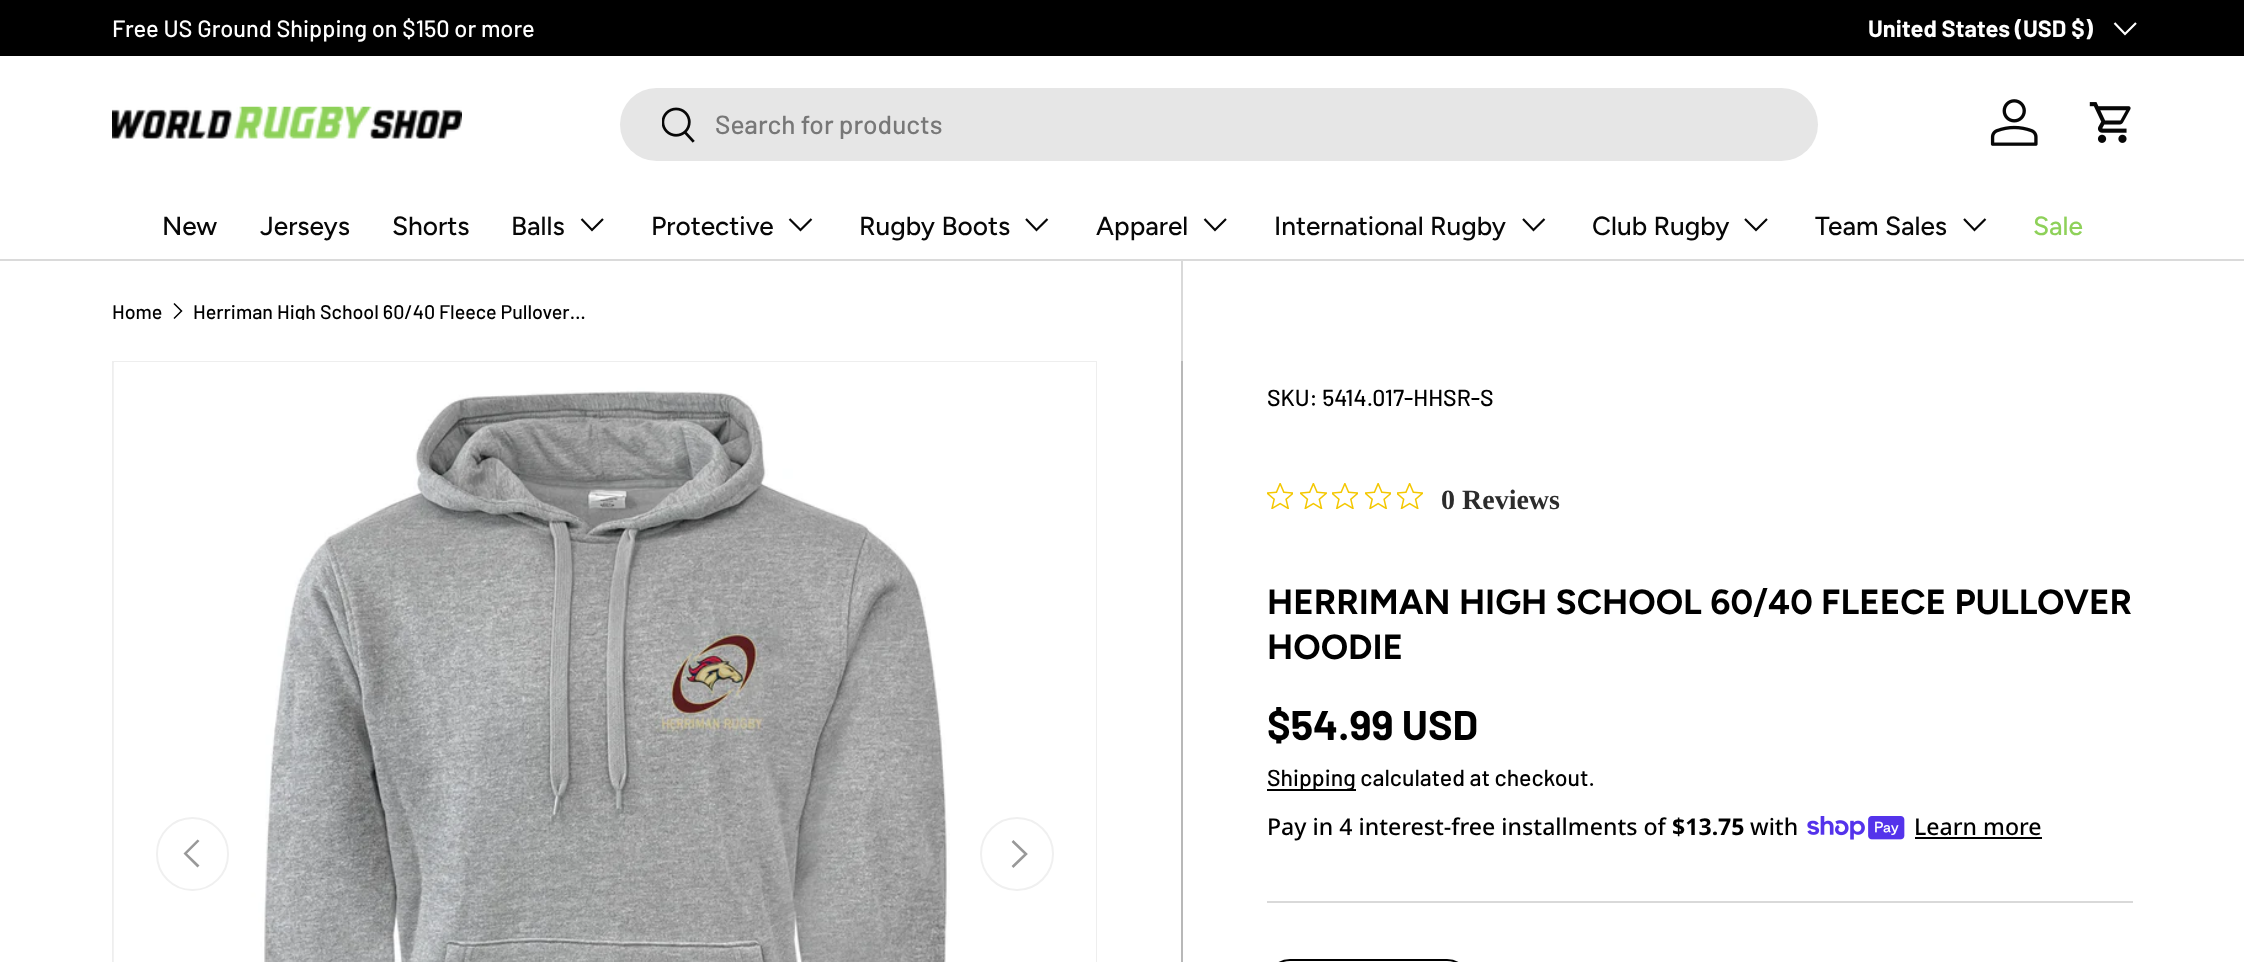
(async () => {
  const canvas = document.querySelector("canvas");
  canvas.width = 2244;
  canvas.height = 962;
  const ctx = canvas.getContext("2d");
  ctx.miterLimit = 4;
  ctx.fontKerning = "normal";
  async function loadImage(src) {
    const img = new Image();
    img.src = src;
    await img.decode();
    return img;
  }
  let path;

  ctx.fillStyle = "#ffffff";
  ctx.fillRect(0, 0, 2244, 962);
  ctx.fillStyle = "#000000";
  ctx.fillRect(0, 0, 2244, 56);
  path = new Path2D("M2136 23L2125 34L2114.5 23");
  ctx.strokeStyle = "#ffffff";
  ctx.lineWidth = 2.2;
  ctx.stroke(path);
  ctx.fillStyle = "#dadada";
  ctx.fillRect(0, 259, 2244, 2);
  ctx.drawImage(await loadImage("img/1.png"), 112, 106, 350, 33);
  ctx.fillStyle = "#e6e6e6";
  ctx.beginPath();
  ctx.roundRect(620, 88, 1198, 73, 36.5);
  ctx.fill();
  ctx.drawImage(await loadImage("img/2.png"), 662, 107, 33, 36);
  ctx.drawImage(await loadImage("img/3.png"), 1990, 99, 48, 47);
  ctx.drawImage(await loadImage("img/4.png"), 2089, 102, 42, 41);
  path = new Path2D("M603 219L592 230L581.5 219");
  ctx.strokeStyle = "#070707";
  ctx.stroke(path);
  path = new Path2D("M811.5 219L800.5 230L789.5 219");
  ctx.stroke(path);
  path = new Path2D("M1047.5 219L1036.5 230L1026 219");
  ctx.stroke(path);
  path = new Path2D("M1226 219L1215 230L1204.5 219");
  ctx.stroke(path);
  path = new Path2D("M1544.5 219L1533.5 230L1523 219");
  ctx.stroke(path);
  path = new Path2D("M1767 219L1756 230L1745 219");
  ctx.stroke(path);
  path = new Path2D("M1985.5 219L1974.5 230L1964 219");
  ctx.stroke(path);
  path = new Path2D("M174 303.5L181.5 311L174 318.5");
  ctx.strokeStyle = "#000000";
  ctx.lineWidth = 1.5;
  ctx.stroke(path);
  ctx.fillStyle = "#b8b8b8";
  ctx.fillRect(1181, 361, 2, 601);
  ctx.strokeStyle = "#eeeeee";
  ctx.lineWidth = 2;
  ctx.strokeRect(113, 362, 983, 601);
  ctx.fillStyle = "#ffffff";
  ctx.fillRect(114, 362, 982, 600);
  ctx.drawImage(await loadImage("img/5.png"), 113, 363, 837, 599);
  ctx.beginPath();
  ctx.roundRect(157, 818, 71, 72, 35.5);
  ctx.strokeStyle = "#f0f0f0";
  ctx.stroke();
  ctx.fillStyle = "#999999";
  path = new Path2D("M183.5 853.5L197.5 839.5L199.5 841L187 853.5L199.5 865.5L197.5 867.5Z");
  ctx.fill(path);
  ctx.beginPath();
  ctx.arc(1017, 854, 36, 0, Math.PI * 2);
  ctx.stroke();
  path = new Path2D("M1012.5 841L1026 854L1012.5 867");
  ctx.strokeStyle = "#999999";
  ctx.lineWidth = 2.6;
  ctx.stroke(path);
  ctx.fillStyle = "#d9d9d9";
  ctx.fillRect(1181, 261, 2, 100);
  ctx.drawImage(await loadImage("img/6.png"), 1267, 483, 26, 26);
  ctx.drawImage(await loadImage("img/7.png"), 1300, 483, 27, 26);
  ctx.drawImage(await loadImage("img/8.png"), 1332, 483, 26, 26);
  ctx.drawImage(await loadImage("img/6.png"), 1365, 483, 26, 26);
  ctx.drawImage(await loadImage("img/9.png"), 1397, 483, 26, 26);
  ctx.fillStyle = "#000000";
  ctx.fillRect(1267, 789, 89, 2);
  ctx.drawImage(await loadImage("img/10.png"), 1807, 816, 98, 24);
  ctx.fillRect(1915, 837, 127, 2);
  ctx.fillStyle = "#d9d9d9";
  ctx.fillRect(1267, 901, 866, 2);
  ctx.beginPath();
  ctx.roundRect(1268, 960, 201, 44, 39.5);
  ctx.strokeStyle = "#000000";
  ctx.lineWidth = 2;
  ctx.stroke();
  ctx.font = "500 23.6px Barlow";
  ctx.fillStyle = "#ffffff";
  ctx.fillText("Free US Ground Shipping on $150 or more", 112, 37);
  ctx.font = "bold 23.6px Barlow";
  ctx.fillText("United States (USD $)", 1868, 37);
  ctx.font = "500 26.25px Barlow";
  ctx.fillStyle = "#777777";
  ctx.fillText("Search for products", 715, 134);
  ctx.font = "500 26.25px Figtree";
  ctx.fillStyle = "#070707";
  for (const [text, x, y] of [
    ["New", 162, 235],
    ["Jerseys", 260, 235],
    ["Shorts", 392, 235],
    ["Balls", 511, 235],
    ["Protective", 651, 235],
    ["Rugby Boots", 859, 235],
    ["Apparel", 1096, 235],
    ["International Rugby", 1274, 235],
    ["Club Rugby", 1592, 235],
    ["Team Sales", 1815, 235],
  ]) {
    ctx.fillText(text, x, y);
  }
  ctx.fillStyle = "#8ed159";
  ctx.fillText("Sale", 2033, 235);
  ctx.font = "500 19.7px Barlow";
  ctx.fillStyle = "#000000";
  ctx.fillText("Home", 112, 319);
  ctx.save();
  ctx.beginPath();
  ctx.rect(193, 301, 393, 19);
  ctx.clip();
  ctx.fillText("Herriman High School 60/40 Fleece Pullover…", 193, 319);
  ctx.restore();
  ctx.font = "500 23.1px Barlow";
  ctx.fillText("SKU: 5414.017-HHSR-S", 1267, 406);
  ctx.font = "bold 28px Liberation Serif";
  ctx.fillStyle = "#2c2c2c";
  ctx.fillText("0 Reviews", 1441, 509);
  ctx.font = "bold 34.9px Figtree";
  ctx.fillStyle = "#000000";
  ctx.fillText("HERRIMAN HIGH SCHOOL 60/40 FLEECE PULLOVER", 1267, 614);
  ctx.fillText("HOODIE", 1267, 659);
  ctx.font = "bold 41.5px Barlow";
  ctx.fillText("$54.99 USD", 1267, 740);
  ctx.font = "500 23.1px Barlow";
  ctx.fillText("Shipping calculated at checkout.", 1267, 786);
  ctx.font = "500 23.1px Noto Sans";
  ctx.fillText("Pay in 4 interest-free installments of", 1267, 835);
  ctx.font = "bold 23.1px Noto Sans";
  ctx.fillText("$13.75", 1672, 835);
  ctx.font = "500 23.1px Noto Sans";
  ctx.fillText("with", 1750, 835);
  ctx.fillText("Learn more", 1914, 835);
})();
